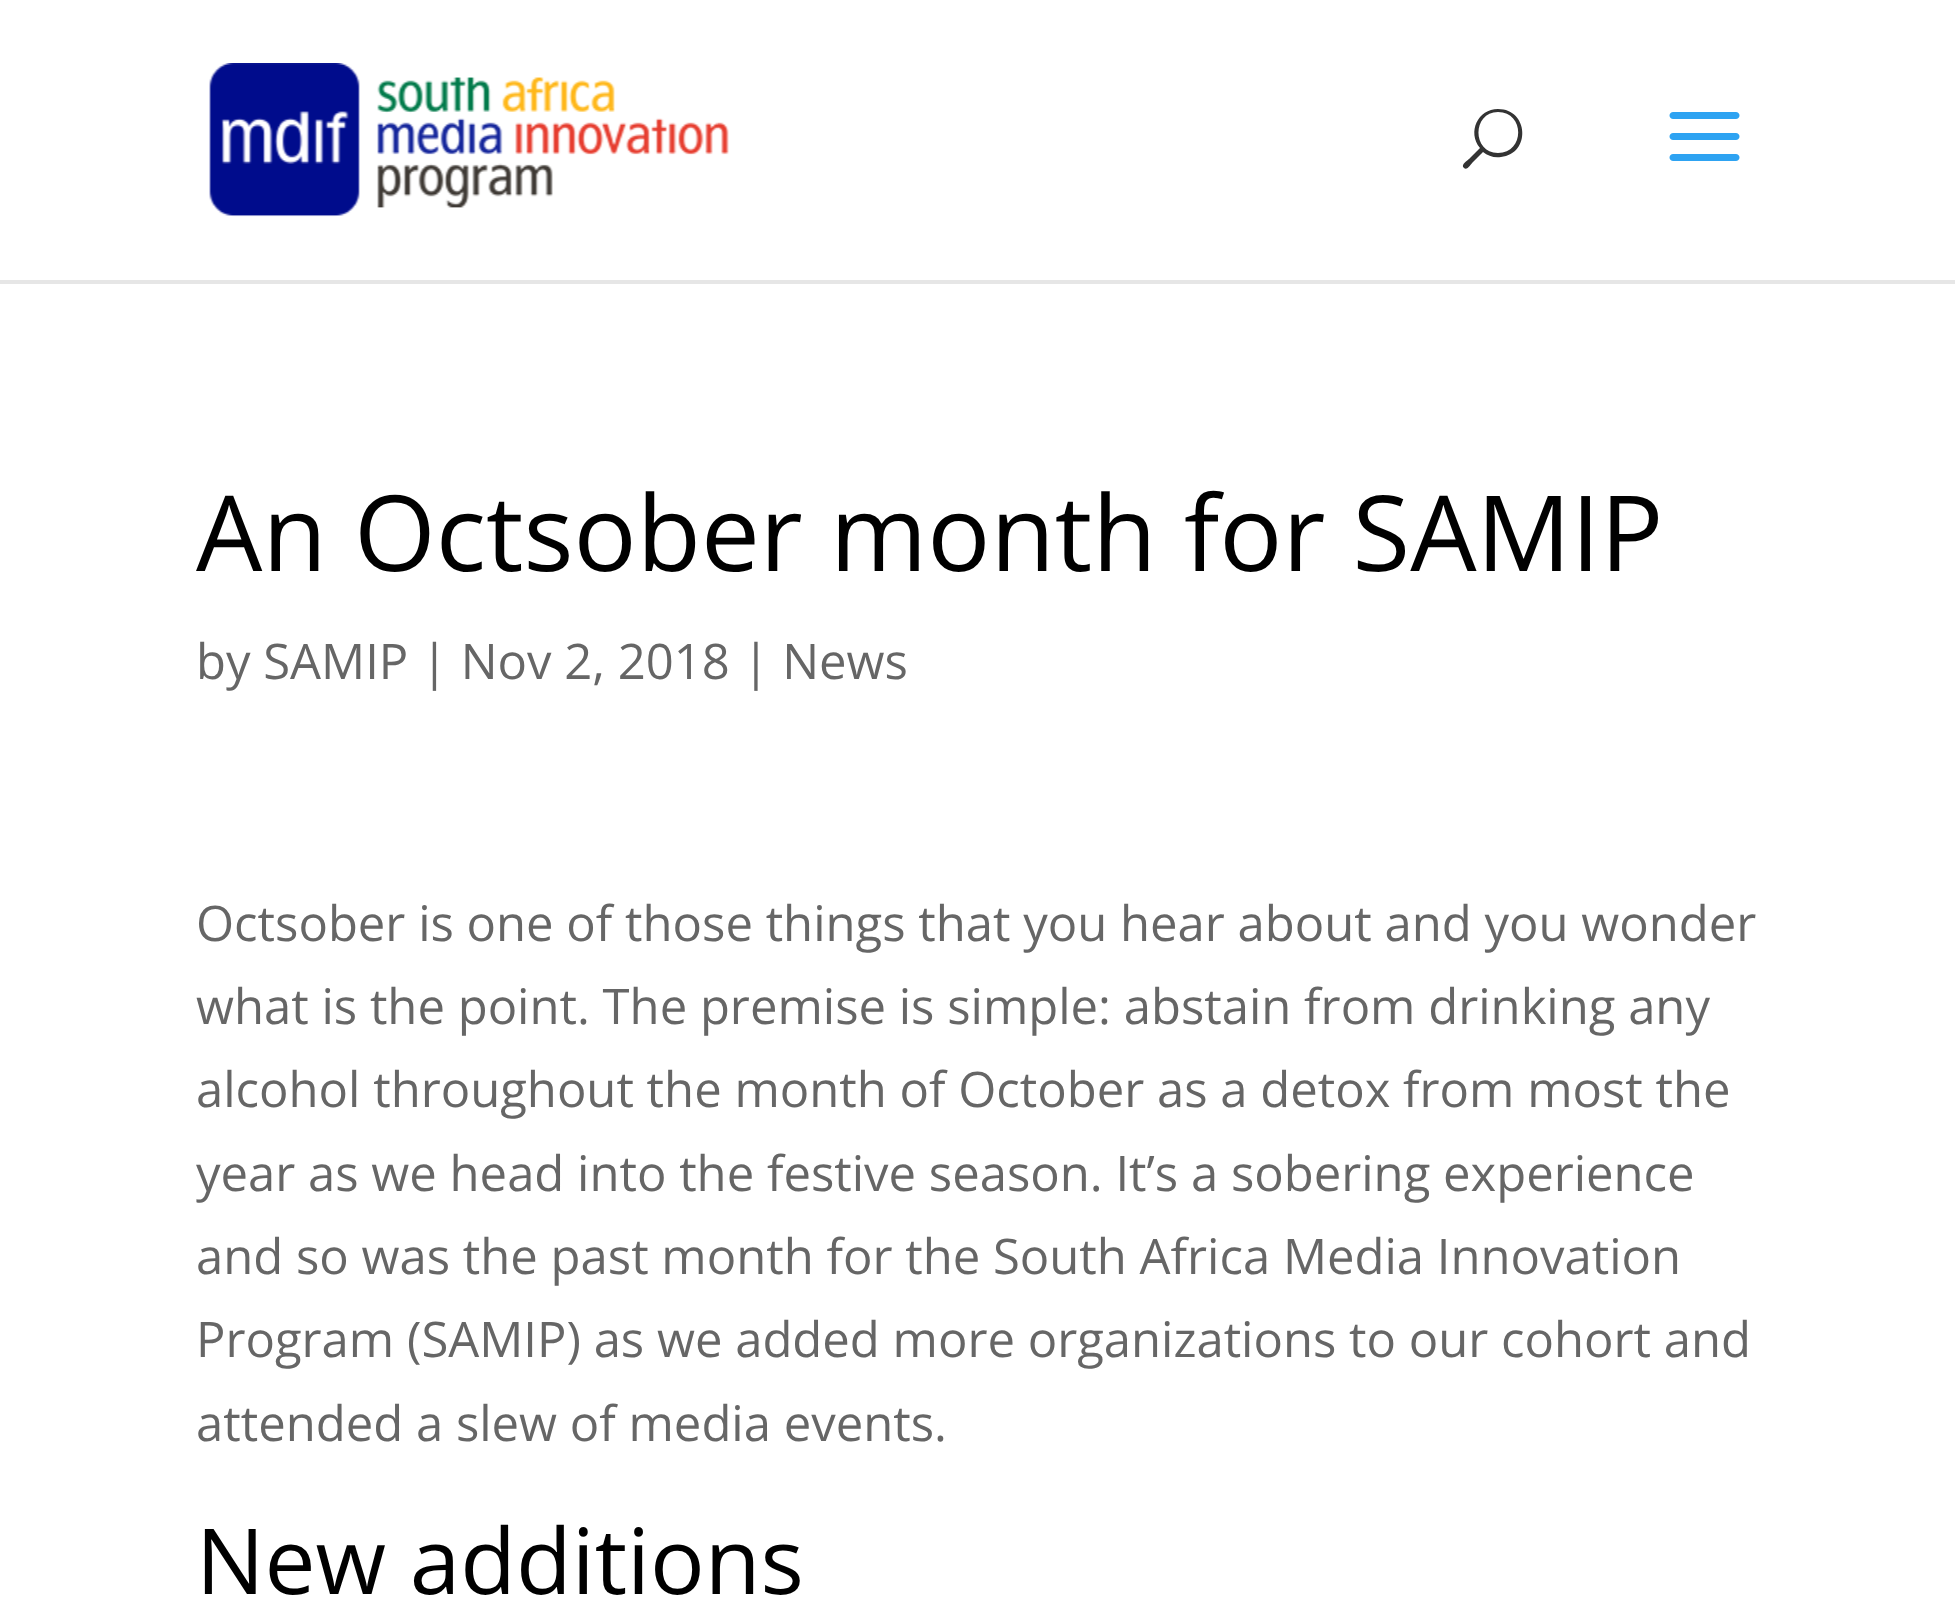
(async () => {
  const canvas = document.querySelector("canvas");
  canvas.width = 1955;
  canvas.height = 1605;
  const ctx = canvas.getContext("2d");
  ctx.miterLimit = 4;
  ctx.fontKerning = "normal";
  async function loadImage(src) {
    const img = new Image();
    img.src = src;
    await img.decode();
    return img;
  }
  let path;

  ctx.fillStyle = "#ffffff";
  ctx.fillRect(0, 0, 1955, 1605);
  ctx.fillStyle = "#e6e6e6";
  path = new Path2D("M0 280V284H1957V4H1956V280Z");
  ctx.fill(path);
  ctx.drawImage(await loadImage("img/1.png"), 209, 63, 520, 154);
  ctx.fillStyle = "#333333";
  path = new Path2D("M1498 109C1478 109 1467 132 1480 148L1469 159C1468 160 1460 165 1464 168C1467 171 1471 164 1473 162L1483 152C1488 156 1494 158 1501 157C1531 154 1529 109 1498 109ZM1498 153C1472 153 1472 112 1498 112C1525 112 1525 153 1498 153Z");
  ctx.fill(path);
  ctx.drawImage(await loadImage("img/2.png"), 1669, 112, 71, 49);
  ctx.font = "105px Open Sans";
  ctx.fillStyle = "#000000";
  ctx.fillText("An Octsober month for SAMIP", 196, 571);
  ctx.font = "49px Open Sans";
  ctx.fillStyle = "#666666";
  for (const [text, x, y] of [
    ["by SAMIP | Nov 2, 2018 | News", 196, 679],
    ["Octsober is one of those things that you hear about and you wonder", 196, 941],
    ["what is the point. The premise is simple: abstain from drinking any", 196, 1024],
    ["alcohol throughout the month of October as a detox from most the", 196, 1107],
    ["year as we head into the festive season. It’s a sobering experience", 196, 1191],
    ["and so was the past month for the South Africa Media Innovation", 196, 1274],
    ["Program (SAMIP) as we added more organizations to our cohort and", 196, 1357],
    ["attended a slew of media events.", 196, 1441],
  ]) {
    ctx.fillText(text, x, y);
  }
  ctx.font = "91px Open Sans";
  ctx.fillStyle = "#000000";
  ctx.fillText("New additions", 196, 1594);
})();
